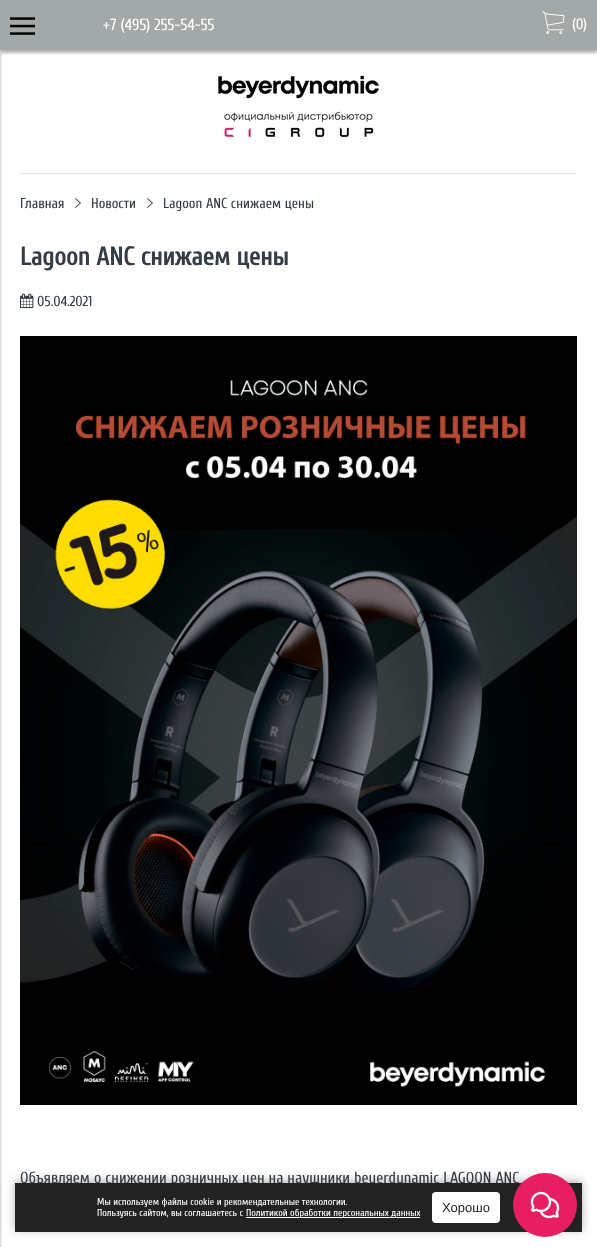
(async () => {
  const canvas = document.querySelector("canvas");
  canvas.width = 597;
  canvas.height = 1247;
  const ctx = canvas.getContext("2d");
  ctx.miterLimit = 4;
  ctx.fontKerning = "normal";
  async function loadImage(src) {
    const img = new Image();
    img.src = src;
    await img.decode();
    return img;
  }

  ctx.fillStyle = "#ffffff";
  ctx.fillRect(0, 0, 597, 1247);
  ctx.fillStyle = "rgba(0, 0, 0, 0.3)";
  ctx.filter = "blur(1.5px)";
  ctx.beginPath();
  ctx.rect(0, 3, 597, 50);
  ctx.fill();
  ctx.filter = "none";
  ctx.fillStyle = "#a2a9a8";
  ctx.fillRect(0, 0, 597, 50);
  ctx.drawImage(await loadImage("img/1.png"), 10, 17, 25, 18);
  ctx.drawImage(await loadImage("img/2.png"), 542, 11, 23, 23);
  ctx.fillStyle = "rgba(0, 0, 0, 0.4)";
  ctx.filter = "blur(1.5px)";
  ctx.beginPath();
  ctx.rect(-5, 53, 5, 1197);
  ctx.fill();
  ctx.filter = "none";
  ctx.drawImage(await loadImage("img/3.png"), 218, 75, 161, 64);
  ctx.fillStyle = "#e1e6e1";
  ctx.fillRect(20, 173, 557, 1);
  ctx.drawImage(await loadImage("img/4.png"), 75, 198, 6, 10);
  ctx.drawImage(await loadImage("img/4.png"), 147, 198, 6, 10);
  ctx.drawImage(await loadImage("img/5.png"), 20, 293, 14, 16);
  ctx.drawImage(await loadImage("img/6.png"), 20, 336, 557, 769);
  ctx.fillStyle = "rgba(0, 0, 0, 0.3)";
  ctx.filter = "blur(5px)";
  ctx.beginPath();
  ctx.rect(15, 1181, 567, 49);
  ctx.fill();
  ctx.filter = "none";
  ctx.font = "16px Cuprum";
  ctx.fillStyle = "#ffffff";
  ctx.fillText("+7 (495) 255-54-55", 103, 30);
  ctx.font = "15px Cuprum";
  ctx.fillText("(0)", 572, 29);
  ctx.font = "14.4px Cuprum";
  ctx.fillStyle = "#343d45";
  for (const [text, x, y] of [
    ["Главная", 20, 208],
    ["Новости", 91, 208],
    ["Lagoon ANC снижаем цены", 163, 208],
  ]) {
    ctx.fillText(text, x, y);
  }
  ctx.font = "bold 25.6px Cuprum";
  ctx.fillText("Lagoon ANC снижаем цены", 20, 265);
  ctx.font = "14.4px Cuprum";
  ctx.fillText("05.04.2021", 37, 306);
  ctx.font = "16px Cuprum";
  ctx.fillText("Объявляем о снижении розничных цен на наушники beyerdynamic LAGOON ANC", 20, 1183);
  ctx.fillStyle = "#222222";
  ctx.fillRect(15, 1183, 567, 49);
  ctx.font = "10px Cuprum";
  ctx.fillStyle = "#ffffff";
  ctx.fillText("Мы используем файлы cookie и рекомендательные технологии.", 97, 1205);
  ctx.fillText("Пользуясь сайтом, вы соглашаетесь с", 97, 1216);
  ctx.fillRect(246, 1217, 174, 1);
  ctx.fillText("Политикой обработки персональных данных", 246, 1216);
  ctx.beginPath();
  ctx.roundRect(432, 1192, 68, 31, 4);
  ctx.fill();
  ctx.font = "13px Liberation Sans";
  ctx.fillStyle = "#222222";
  ctx.fillText("Хорошо", 442, 1212);
  ctx.fillStyle = "#e81e63";
  ctx.beginPath();
  ctx.arc(545, 1205, 32, 0, Math.PI * 2);
  ctx.fill();
  ctx.drawImage(await loadImage("img/7.png"), 530, 1191, 30, 28);
})();
